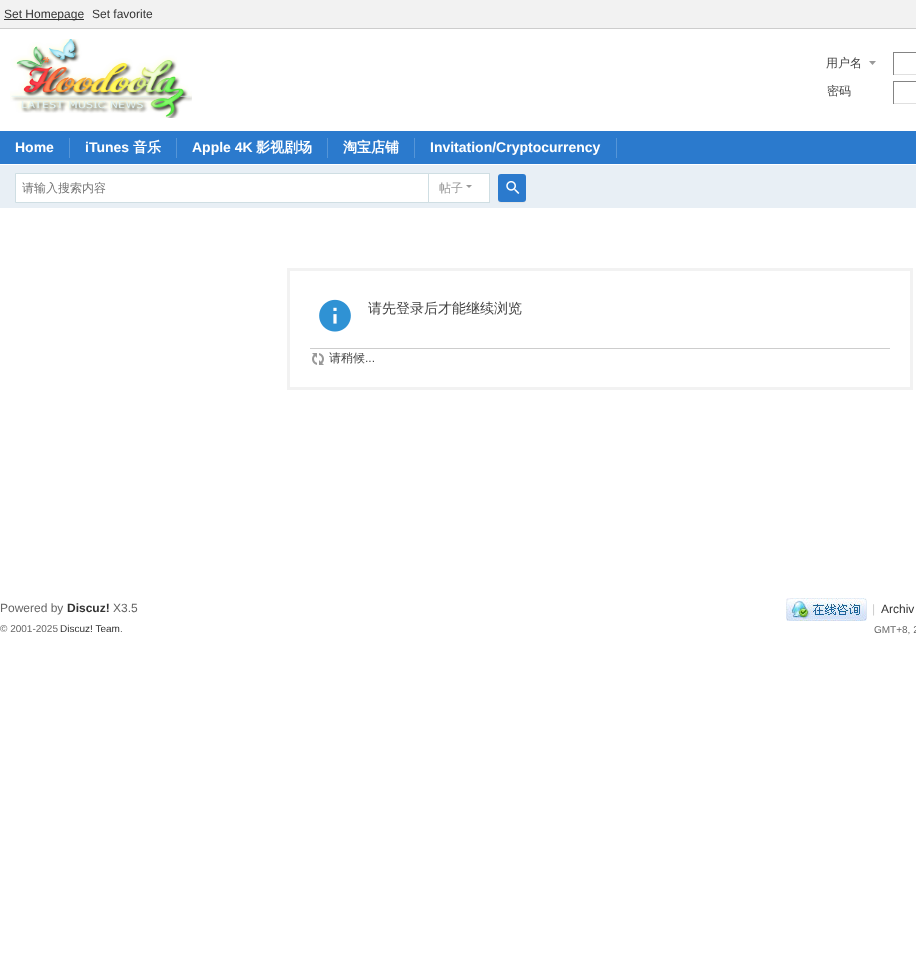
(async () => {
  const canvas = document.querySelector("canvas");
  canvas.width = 916;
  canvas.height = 958;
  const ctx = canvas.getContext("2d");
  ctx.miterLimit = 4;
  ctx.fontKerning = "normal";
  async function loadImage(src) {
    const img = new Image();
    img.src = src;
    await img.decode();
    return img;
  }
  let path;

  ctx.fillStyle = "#ffffff";
  ctx.fillRect(0, 0, 916, 958);
  for (const [x, y, w, h, color] of [
    [0, 0, 916, 28, "#f2f2f2"],
    [0, 28, 916, 1, "#cdcdcd"],
    [4, 19, 80, 1, "#333333"],
  ]) {
    ctx.fillStyle = color;
    ctx.fillRect(x, y, w, h);
  }
  ctx.drawImage(await loadImage("img/1.png"), 10, 39, 182, 79);
  ctx.fillStyle = "#999999";
  path = new Path2D("M876 61H869L872.5 65Z");
  ctx.fill(path);
  for (const [x, y, w, h, color] of [
    [893, 52, 23, 1, "#848484"],
    [893, 74, 23, 1, "#e0e0e0"],
    [893, 52, 1, 23, "#848484"],
    [893, 81, 23, 1, "#848484"],
    [893, 103, 23, 1, "#e0e0e0"],
    [893, 81, 1, 23, "#848484"],
    [0, 131, 916, 33, "#2b7acd"],
    [69, 138, 1, 20, "#5595d7"],
    [176, 138, 1, 20, "#5595d7"],
    [327, 138, 1, 20, "#5595d7"],
    [414, 138, 1, 20, "#5595d7"],
    [616, 138, 1, 20, "#5595d7"],
    [0, 165, 916, 43, "#e8eff5"],
    [427, 173, 63, 1, "#cfdee3"],
    [489, 173, 1, 30, "#cfdee3"],
    [427, 202, 63, 1, "#cfdee3"],
  ]) {
    ctx.fillStyle = color;
    ctx.fillRect(x, y, w, h);
  }
  ctx.fillStyle = "#ffffff";
  ctx.beginPath();
  ctx.rect(15.5, 173.5, 413, 29);
  ctx.fill();
  ctx.strokeStyle = "#cfdee3";
  ctx.stroke();
  ctx.fillRect(429, 174, 60, 28);
  ctx.fillStyle = "#999999";
  path = new Path2D("M466 185H472L469 188Z");
  ctx.fill(path);
  ctx.fillStyle = "#e5e5e5";
  path = new Path2D("M498 199C498 203.5 501 203 504.5 203H519.5C523 203 526 203.5 526 199C526 200.5 524.5 202 523 202H501C499.5 202 498 200.5 498 199Z");
  ctx.fill(path);
  ctx.fillStyle = "#2b7acd";
  ctx.beginPath();
  ctx.roundRect(498, 174, 28, 28, 3);
  ctx.fill();
  ctx.drawImage(await loadImage("img/2.png"), 506, 181, 14, 13);
  ctx.strokeStyle = "#f2f2f2";
  ctx.lineWidth = 3;
  ctx.strokeRect(288.5, 269.5, 623, 119);
  ctx.drawImage(await loadImage("img/3.png"), 319, 299, 32, 33);
  ctx.fillStyle = "#cdcdcd";
  ctx.fillRect(310, 348, 580, 1);
  ctx.drawImage(await loadImage("img/4.png"), 312, 353, 12, 12);
  ctx.drawImage(await loadImage("img/5.png"), 786, 598, 81, 23);
  ctx.font = "12px Liberation Sans";
  ctx.fillStyle = "#333333";
  ctx.fillText("Set Homepage", 4, 18);
  ctx.fillText("Set favorite", 92, 18);
  ctx.font = "500 12px WenQuanYi Zen Hei";
  ctx.fillStyle = "#444444";
  ctx.fillText("用户名", 826, 67);
  ctx.fillText("密码", 827, 95);
  ctx.font = "bold 14px Liberation Sans";
  ctx.fillStyle = "#ffffff";
  ctx.fillText("Home", 15, 152);
  ctx.fillText("iTunes", 85, 152);
  ctx.font = "bold 14px WenQuanYi Zen Hei";
  ctx.fillText("音乐", 133, 152);
  ctx.font = "bold 14px Liberation Sans";
  ctx.fillText("Apple 4K", 192, 152);
  ctx.font = "bold 14px WenQuanYi Zen Hei";
  ctx.fillText("影视剧场", 256, 152);
  ctx.fillText("淘宝店铺", 343, 152);
  ctx.font = "bold 14px Liberation Sans";
  ctx.fillText("Invitation/Cryptocurrency", 430, 152);
  ctx.font = "500 12px WenQuanYi Zen Hei";
  ctx.fillStyle = "#757575";
  ctx.fillText("请输入搜索内容", 22, 192);
  ctx.fillStyle = "#999999";
  ctx.fillText("帖子", 439, 192);
  ctx.font = "500 14px WenQuanYi Zen Hei";
  ctx.fillStyle = "#444444";
  ctx.fillText("请先登录后才能继续浏览", 368, 313);
  ctx.font = "500 12px WenQuanYi Zen Hei";
  ctx.fillText("请稍候", 329, 362);
  ctx.font = "12px Liberation Sans";
  ctx.fillText("...", 365, 362);
  ctx.fillStyle = "#666666";
  ctx.fillText("Powered by", 0, 612);
  ctx.font = "bold 12px Liberation Sans";
  ctx.fillStyle = "#333333";
  ctx.fillText("Discuz!", 67, 612);
  ctx.font = "12px Liberation Sans";
  ctx.fillStyle = "#666666";
  ctx.fillText("X3.5", 113, 612);
  ctx.font = "10px Liberation Sans";
  ctx.fillText("© 2001-2025", 0, 632);
  ctx.fillStyle = "#333333";
  ctx.fillText("Discuz! Team", 60, 632);
  ctx.fillStyle = "#666666";
  ctx.fillText(".", 120, 632);
  ctx.font = "12px Liberation Sans";
  ctx.fillStyle = "#cccccc";
  ctx.fillText("|", 872, 613);
  ctx.fillStyle = "#333333";
  ctx.fillText("Archiv", 881, 613);
  ctx.font = "10px Liberation Sans";
  ctx.fillStyle = "#666666";
  ctx.fillText("GMT+8, 2", 874, 633);
})();
